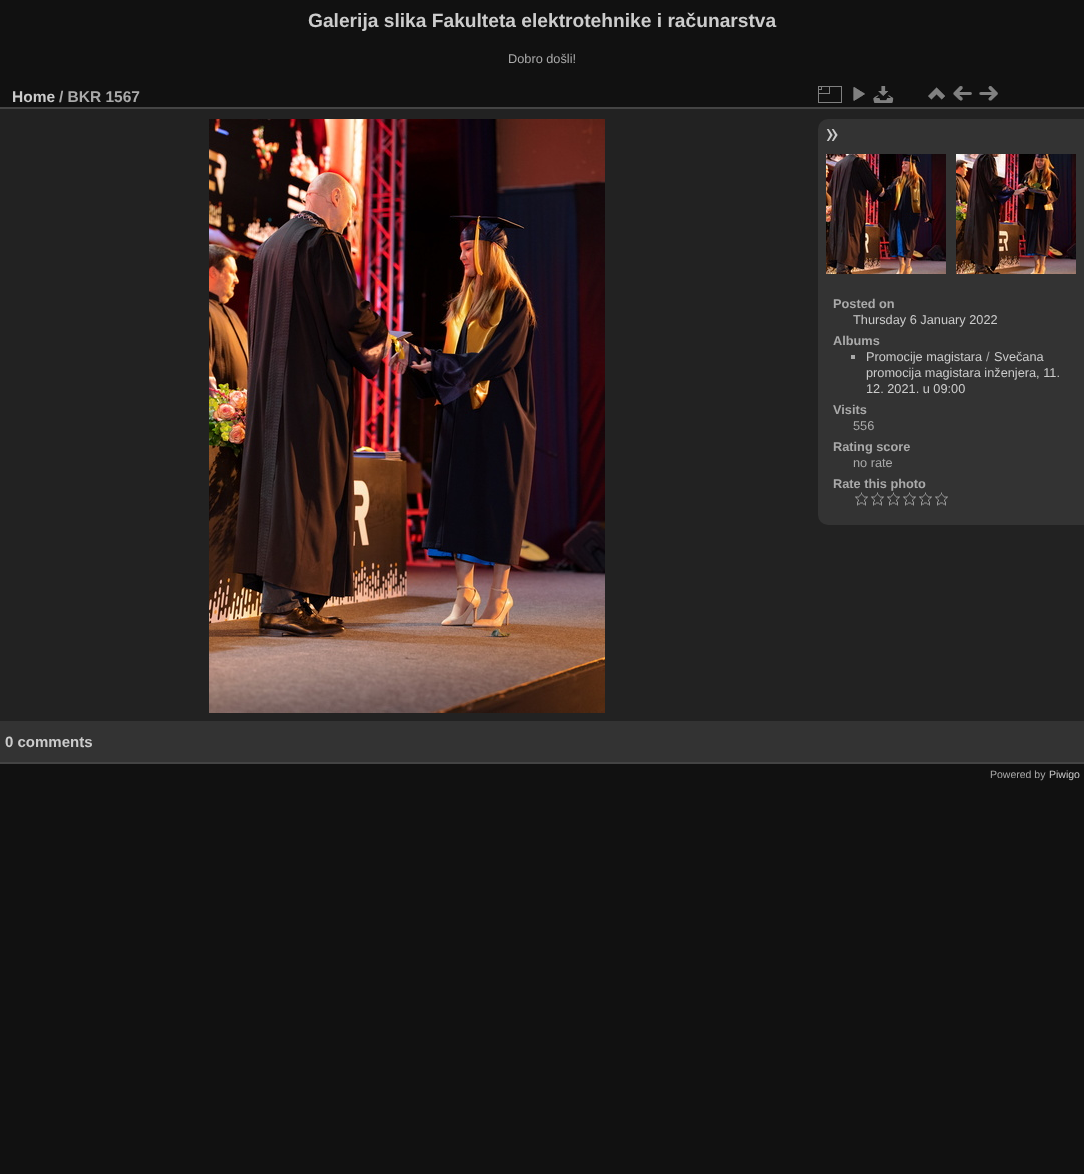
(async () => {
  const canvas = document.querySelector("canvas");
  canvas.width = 1084;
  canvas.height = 1174;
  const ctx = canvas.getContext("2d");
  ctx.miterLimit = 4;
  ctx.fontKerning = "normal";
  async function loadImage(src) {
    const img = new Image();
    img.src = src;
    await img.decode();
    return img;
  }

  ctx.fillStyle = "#111111";
  ctx.fillRect(0, 0, 1084, 1174);
  for (const [x, y, w, h, color] of [
    [0, 109, 1084, 612, "#222222"],
    [0, 762, 1084, 2, "#444444"],
    [0, 107, 1084, 2, "#444444"],
  ]) {
    ctx.fillStyle = color;
    ctx.fillRect(x, y, w, h);
  }
  ctx.drawImage(await loadImage("img/1.png"), 818, 86, 24, 17);
  ctx.drawImage(await loadImage("img/2.png"), 853, 87, 12, 14);
  ctx.drawImage(await loadImage("img/3.png"), 873, 86, 21, 17);
  ctx.drawImage(await loadImage("img/4.png"), 928, 87, 17, 13);
  ctx.drawImage(await loadImage("img/5.png"), 953, 86, 19, 15);
  ctx.drawImage(await loadImage("img/6.png"), 979, 86, 19, 15);
  ctx.drawImage(await loadImage("img/7.png"), 209, 119, 396, 594);
  ctx.fillStyle = "#333333";
  ctx.beginPath();
  ctx.roundRect(818, 119, 266, 406, [10, 0, 0, 10]);
  ctx.fill();
  ctx.drawImage(await loadImage("img/8.png"), 826, 129, 12, 12);
  ctx.drawImage(await loadImage("img/9.png"), 826, 154, 120, 120);
  ctx.drawImage(await loadImage("img/10.png"), 956, 154, 120, 120);
  ctx.fillStyle = "#aaaaaa";
  ctx.fillRect(851, 355, 4, 4);
  ctx.drawImage(await loadImage("img/11.png"), 855, 492, 13, 14);
  ctx.drawImage(await loadImage("img/11.png"), 871, 492, 13, 14);
  ctx.drawImage(await loadImage("img/11.png"), 887, 492, 13, 14);
  ctx.drawImage(await loadImage("img/11.png"), 903, 492, 13, 14);
  ctx.drawImage(await loadImage("img/11.png"), 919, 492, 13, 14);
  ctx.drawImage(await loadImage("img/11.png"), 935, 492, 13, 14);
  ctx.fillStyle = "#333333";
  ctx.fillRect(0, 721, 1084, 41);
  ctx.font = "bold 19.2px Liberation Sans";
  ctx.fillStyle = "#cccccc";
  ctx.fillText("Galerija slika Fakulteta elektrotehnike i računarstva", 308, 27);
  ctx.font = "12.75px Liberation Sans";
  ctx.fillStyle = "#aaaaaa";
  ctx.fillText("Dobro došli!", 508, 63);
  ctx.font = "bold 15.5px Liberation Sans";
  ctx.fillStyle = "#cccccc";
  ctx.fillText("Home", 12, 102);
  ctx.fillStyle = "#aaaaaa";
  ctx.fillText("/ BKR 1567", 59, 102);
  ctx.font = "bold 12.75px Liberation Sans";
  ctx.fillText("Posted on", 833, 308);
  ctx.font = "12.75px Liberation Sans";
  ctx.fillStyle = "#cccccc";
  ctx.fillText("Thursday 6 January 2022", 853, 324);
  ctx.font = "bold 12.75px Liberation Sans";
  ctx.fillStyle = "#aaaaaa";
  ctx.fillText("Albums", 833, 345);
  ctx.font = "12.75px Liberation Sans";
  ctx.fillStyle = "#cccccc";
  ctx.fillText("Promocije magistara", 866, 361);
  ctx.fillStyle = "#aaaaaa";
  ctx.fillText("/", 986, 361);
  ctx.fillStyle = "#cccccc";
  for (const [text, x, y] of [
    ["Svečana", 994, 361],
    ["promocija magistara inženjera, 11.", 866, 377],
    ["12. 2021. u 09:00", 866, 393],
  ]) {
    ctx.fillText(text, x, y);
  }
  ctx.font = "bold 12.75px Liberation Sans";
  ctx.fillStyle = "#aaaaaa";
  ctx.fillText("Visits", 833, 414);
  ctx.font = "12.75px Liberation Sans";
  ctx.fillText("556", 853, 430);
  ctx.font = "bold 12.75px Liberation Sans";
  ctx.fillText("Rating score", 833, 451);
  ctx.font = "12.75px Liberation Sans";
  ctx.fillText("no rate", 853, 467);
  ctx.font = "bold 12.75px Liberation Sans";
  ctx.fillText("Rate this photo", 833, 488);
  ctx.font = "bold 15px Liberation Sans";
  ctx.fillStyle = "#cccccc";
  ctx.fillText("0 comments", 5, 747);
  ctx.font = "10.5px Liberation Sans";
  ctx.fillStyle = "#aaaaaa";
  ctx.fillText("Powered by", 990, 778);
  ctx.fillStyle = "#cccccc";
  ctx.fillText("Piwigo", 1049, 778);
})();
